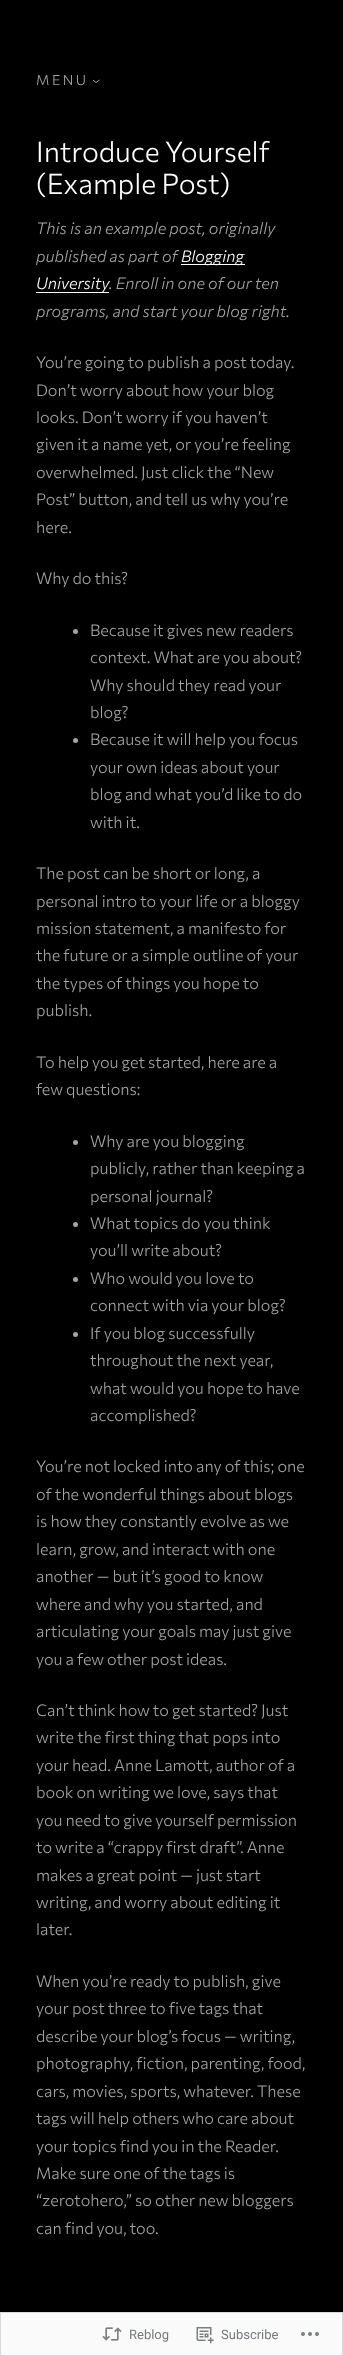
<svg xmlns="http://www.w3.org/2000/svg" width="343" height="2356">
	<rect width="100%" height="100%" fill="#000000" />
	<text x="36" y="85" font-family="Commissioner" font-size="14" font-weight="300" letter-spacing="2.5" fill="#A4A4A4">MENU</text>
	<path d="M93 80L96 82.5L99.5 80" fill="none" stroke="#A4A4A4" />
	<g font-family="Commissioner" font-size="28.25" font-weight="300" fill="#FFFFFF">
		<text x="36" y="162">Introduce Yourself</text>
		<text x="36" y="194">(Example Post)</text>
	</g>
	<g font-family="Commissioner" font-size="16.1" font-weight="300" font-style="italic" fill="#A4A4A4">
		<text x="36" y="234">This is an example post, originally</text>
		<text x="36" y="262">published as part of</text>
	</g>
	<rect x="181" y="264" width="64" height="1" fill="#FFFFFF" />
	<text x="181" y="262" font-family="Commissioner" font-size="16.1" font-weight="300" font-style="italic" fill="#FFFFFF">Blogging</text>
	<rect x="36" y="292" width="73" height="1" fill="#FFFFFF" />
	<text x="36" y="289" font-family="Commissioner" font-size="16.1" font-weight="300" font-style="italic" fill="#FFFFFF">University</text>
	<g font-family="Commissioner" font-size="16.1" font-weight="300" font-style="italic" fill="#A4A4A4">
		<text x="109" y="289">. Enroll in one of our ten</text>
		<text x="36" y="317">programs, and start your blog right.</text>
	</g>
	<g font-family="Commissioner" font-size="16.1" font-weight="300" fill="#A4A4A4">
		<text x="36" y="368">You’re going to publish a post today.</text>
		<text x="36" y="396">Don’t worry about how your blog</text>
		<text x="36" y="423">looks. Don’t worry if you haven’t</text>
		<text x="36" y="450">given it a name yet, or you’re feeling</text>
		<text x="36" y="478">overwhelmed. Just click the “New</text>
		<text x="36" y="505">Post” button, and tell us why you’re</text>
		<text x="36" y="533">here.</text>
		<text x="36" y="584">Why do this?</text>
	</g>
	<circle cx="75.5" cy="631.5" r="2.5" fill="#A4A4A4" />
	<g font-family="Commissioner" font-size="16.1" font-weight="300" fill="#A4A4A4">
		<text x="90" y="636">Because it gives new readers</text>
		<text x="90" y="663">context. What are you about?</text>
		<text x="90" y="691">Why should they read your</text>
		<text x="90" y="718">blog?</text>
	</g>
	<circle cx="75.5" cy="740.5" r="2.5" fill="#A4A4A4" />
	<g font-family="Commissioner" font-size="16.1" font-weight="300" fill="#A4A4A4">
		<text x="90" y="745">Because it will help you focus</text>
		<text x="90" y="773">your own ideas about your</text>
		<text x="90" y="800">blog and what you’d like to do</text>
		<text x="90" y="828">with it.</text>
		<text x="36" y="879">The post can be short or long, a</text>
		<text x="36" y="907">personal intro to your life or a bloggy</text>
		<text x="36" y="934">mission statement, a manifesto for</text>
		<text x="36" y="961">the future or a simple outline of your</text>
		<text x="36" y="989">the types of things you hope to</text>
		<text x="36" y="1016">publish.</text>
		<text x="36" y="1068">To help you get started, here are a</text>
		<text x="36" y="1095">few questions:</text>
	</g>
	<circle cx="75.5" cy="1142.5" r="2.5" fill="#A4A4A4" />
	<g font-family="Commissioner" font-size="16.1" font-weight="300" fill="#A4A4A4">
		<text x="90" y="1147">Why are you blogging</text>
		<text x="90" y="1174">publicly, rather than keeping a</text>
		<text x="90" y="1202">personal journal?</text>
	</g>
	<circle cx="75.5" cy="1224.5" r="2.5" fill="#A4A4A4" />
	<g font-family="Commissioner" font-size="16.1" font-weight="300" fill="#A4A4A4">
		<text x="90" y="1229">What topics do you think</text>
		<text x="90" y="1256">you’ll write about?</text>
	</g>
	<circle cx="75.5" cy="1279.5" r="2.5" fill="#A4A4A4" />
	<g font-family="Commissioner" font-size="16.1" font-weight="300" fill="#A4A4A4">
		<text x="90" y="1284">Who would you love to</text>
		<text x="90" y="1311">connect with via your blog?</text>
	</g>
	<circle cx="75.5" cy="1334.5" r="2.5" fill="#A4A4A4" />
	<g font-family="Commissioner" font-size="16.1" font-weight="300" fill="#A4A4A4">
		<text x="90" y="1339">If you blog successfully</text>
		<text x="90" y="1366">throughout the next year,</text>
		<text x="90" y="1394">what would you hope to have</text>
		<text x="90" y="1421">accomplished?</text>
		<text x="36" y="1472">You’re not locked into any of this; one</text>
		<text x="36" y="1500">of the wonderful things about blogs</text>
		<text x="36" y="1527">is how they constantly evolve as we</text>
		<text x="36" y="1555">learn, grow, and interact with one</text>
		<text x="36" y="1582">another — but it’s good to know</text>
		<text x="36" y="1610">where and why you started, and</text>
		<text x="36" y="1637">articulating your goals may just give</text>
		<text x="36" y="1665">you a few other post ideas.</text>
		<text x="36" y="1716">Can’t think how to get started? Just</text>
		<text x="36" y="1743">write the first thing that pops into</text>
		<text x="36" y="1771">your head. Anne Lamott, author of a</text>
		<text x="36" y="1798">book on writing we love, says that</text>
		<text x="36" y="1826">you need to give yourself permission</text>
		<text x="36" y="1853">to write a “crappy first draft”. Anne</text>
		<text x="36" y="1881">makes a great point — just start</text>
		<text x="36" y="1908">writing, and worry about editing it</text>
		<text x="36" y="1935">later.</text>
		<text x="36" y="1987">When you’re ready to publish, give</text>
		<text x="36" y="2014">your post three to five tags that</text>
		<text x="36" y="2042">describe your blog’s focus — writing,</text>
		<text x="36" y="2069">photography, fiction, parenting, food,</text>
		<text x="36" y="2097">cars, movies, sports, whatever. These</text>
		<text x="36" y="2124">tags will help others who care about</text>
		<text x="36" y="2152">your topics find you in the Reader.</text>
		<text x="36" y="2179">Make sure one of the tags is</text>
		<text x="36" y="2206">“zerotohero,” so other new bloggers</text>
		<text x="36" y="2234">can find you, too.</text>
	</g>
	<rect x="0.5" y="2312.5" width="342" height="43" fill="#FAFAFA" stroke="#D8D8DA" />
	<image x="102" y="2327" width="20" height="14" href="assets/img1.png" />
	<text x="129" y="2339" font-family="Roboto" font-size="13" fill="#767A7F">Reblog</text>
	<image x="196" y="2327" width="18" height="17" href="assets/img2.png" />
	<text x="221" y="2339" font-family="Roboto" font-size="13" fill="#767A7F">Subscribe</text>
	<image x="301" y="2332" width="18" height="4" href="assets/img3.png" />
</svg>
